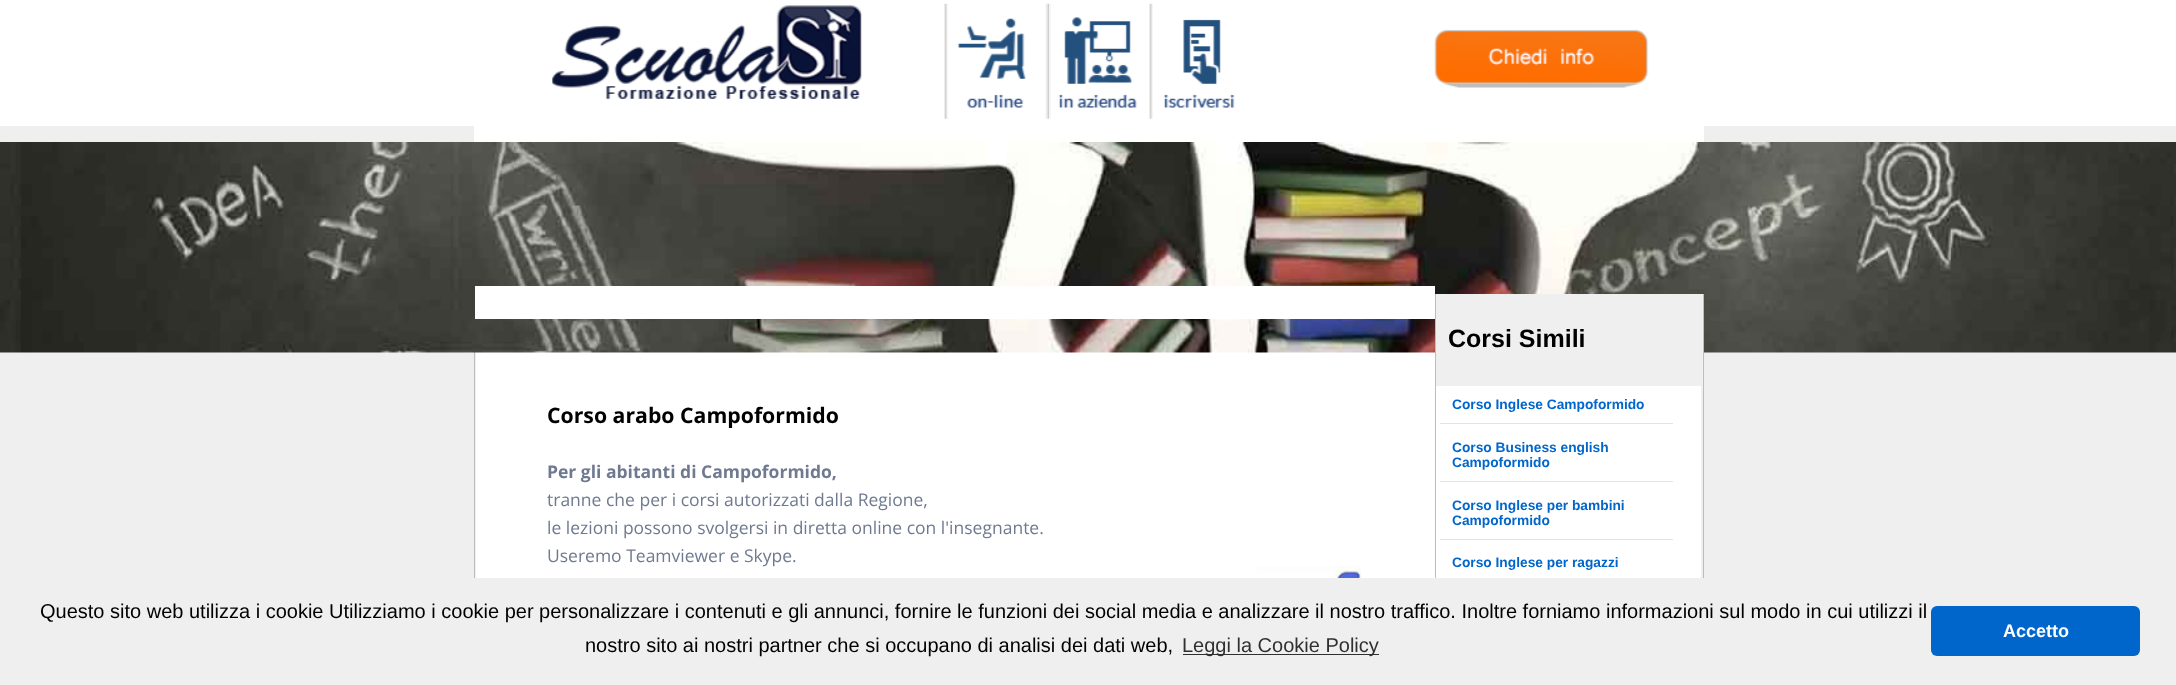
<svg xmlns="http://www.w3.org/2000/svg" width="2176" height="685">
	<rect width="100%" height="100%" fill="#EFEFEF" />
	<rect x="474" y="352" width="1" height="226" fill="#BDBDBD" />
	<rect x="476" y="352" width="1225" height="226" fill="#FFFFFF" />
	<image x="0" y="142" width="2176" height="211" href="assets/img1.png" />
	<rect x="474" y="126" width="1230" height="16" fill="#FFFFFF" />
	<rect x="1703" y="386" width="1" height="192" fill="#BDBDBD" />
	<rect x="0" y="0" width="2176" height="126" fill="#FFFFFF" />
	<image x="552" y="5" width="310" height="94" href="assets/img2.png" />
	<image x="944" y="3" width="4" height="116" href="assets/img3.png" />
	<image x="958" y="18" width="68" height="90" href="assets/img4.png" />
	<image x="1045" y="3" width="6" height="116" href="assets/img5.png" />
	<image x="1058" y="17" width="79" height="91" href="assets/img6.png" />
	<image x="1149" y="3" width="4" height="116" href="assets/img3.png" />
	<image x="1163" y="19" width="72" height="89" href="assets/img7.png" />
	<image x="1434" y="29" width="215" height="59" href="assets/img8.png" />
	<rect x="475" y="286" width="960" height="33" fill="#FFFFFF" />
	<text x="547" y="423" font-family="Open Sans" font-size="21.25" font-weight="700" fill="#000000">Corso arabo Campoformido</text>
	<text x="547" y="478" font-family="Open Sans" font-size="17.5" font-weight="700" fill="#6F7A91">Per gli abitanti di Campoformido,</text>
	<g font-family="Open Sans" font-size="17.5" fill="#6F7A91">
		<text x="547" y="506">tranne che per i corsi autorizzati dalla Regione,</text>
		<text x="547" y="534">le lezioni possono svolgersi in diretta online con l'insegnante.</text>
		<text x="547" y="562">Useremo Teamviewer e Skype.</text>
	</g>
	<image x="1257" y="566" width="105" height="12" href="assets/img9.png" />
	<rect x="1435" y="386" width="1" height="192" fill="#BDBDBD" />
	<rect x="1436" y="294" width="267" height="92" fill="#EFEFEF" />
	<rect x="1703" y="294" width="1" height="92" fill="#BDBDBD" />
	<rect x="1435" y="294" width="1" height="92" fill="#BDBDBD" />
	<text x="1448" y="347" font-family="Liberation Sans" font-size="25" font-weight="700" fill="#000000">Corsi Simili</text>
	<rect x="1440" y="423" width="233" height="1" fill="#DFE4EA" />
	<text x="1452" y="409" font-family="Liberation Sans" font-size="13.75" font-weight="700" fill="#0066CC">Corso Inglese Campoformido</text>
	<rect x="1440" y="481" width="233" height="1" fill="#DFE4EA" />
	<g font-family="Liberation Sans" font-size="13.75" font-weight="700" fill="#0066CC">
		<text x="1452" y="452">Corso Business english</text>
		<text x="1452" y="467">Campoformido</text>
	</g>
	<rect x="1440" y="539" width="233" height="1" fill="#DFE4EA" />
	<g font-family="Liberation Sans" font-size="13.75" font-weight="700" fill="#0066CC">
		<text x="1452" y="510">Corso Inglese per bambini</text>
		<text x="1452" y="525">Campoformido</text>
		<text x="1452" y="567">Corso Inglese per ragazzi</text>
	</g>
	<g font-family="Liberation Sans" font-size="20" fill="#000000">
		<text x="40" y="618">Questo sito web utilizza i cookie Utilizziamo i cookie per personalizzare i contenuti e gli annunci, fornire le funzioni dei social media e analizzare il nostro traffico. Inoltre forniamo informazioni sul modo in cui utilizzi il</text>
		<text x="585" y="652">nostro sito ai nostri partner che si occupano di analisi dei dati web,</text>
	</g>
	<rect x="1183" y="654" width="196" height="1" fill="#303030" />
	<text x="1182" y="652" font-family="Liberation Sans" font-size="20" fill="#303030">Leggi la Cookie Policy</text>
	<rect x="1931" y="606" width="209" height="50" rx="6" fill="#0066CC" />
	<text x="2003" y="637" font-family="Liberation Sans" font-size="18" font-weight="700" fill="#FFFFFF">Accetto</text>
</svg>
